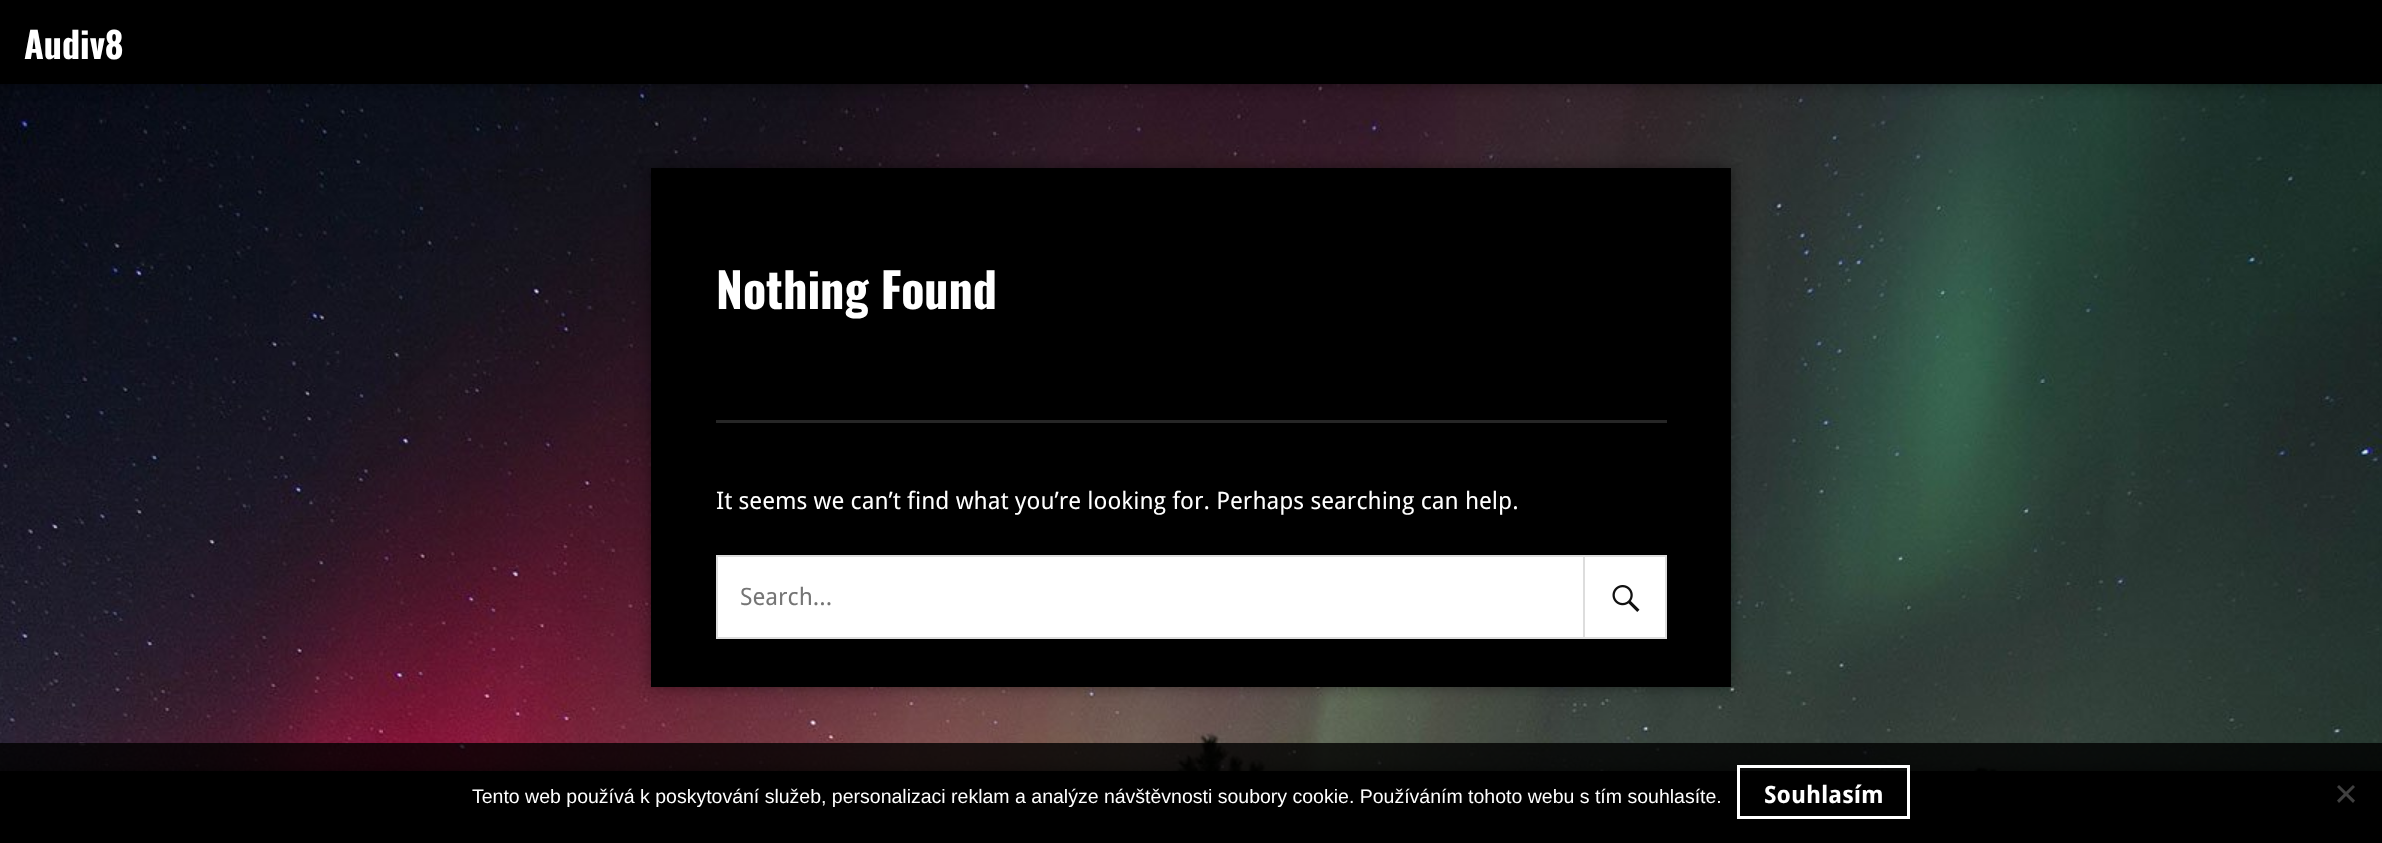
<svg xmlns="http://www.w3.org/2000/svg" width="2382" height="843">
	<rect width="100%" height="100%" fill="#FFFFFF" />
	<image x="0" y="84" width="2382" height="687" href="assets/img1.png" />
	<rect x="0" y="0" width="2382" height="84" fill="#000000" fill-opacity="0.4" filter="blur(7.5px)" />
	<rect x="0" y="0" width="2382" height="84" fill="#000000" />
	<text x="24" y="59" font-family="Oswald" font-size="36" font-weight="700" fill="#FFFFFF">Audiv8</text>
	<rect x="651" y="168" width="1080" height="519" fill="#000000" fill-opacity="0.4" filter="blur(7.5px)" />
	<rect x="651" y="168" width="1080" height="519" fill="#000000" />
	<rect x="716" y="420" width="951" height="3" fill="#262626" />
	<text x="716" y="309" font-family="Oswald" font-size="48" font-weight="700" fill="#FFFFFF">Nothing Found</text>
	<text x="716" y="509" font-family="Droid Sans" font-size="24" fill="#FFFFFF">It seems we can’t find what you’re looking for. Perhaps searching can help.</text>
	<rect x="717" y="556" width="949" height="82" fill="#FFFFFF" stroke="#DDDDDD" stroke-width="2" />
	<text x="740" y="605" font-family="Droid Sans" font-size="24" fill="#757575">Search...</text>
	<rect x="1583" y="555" width="2" height="84" fill="#DDDDDD" />
	<image x="1612" y="585" width="28" height="27" href="assets/img2.png" />
	<rect x="0" y="771" width="2382" height="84" fill="#000000" fill-opacity="0.4" filter="blur(7.5px)" />
	<rect x="0" y="771" width="2382" height="72" fill="#000000" />
	<rect x="0" y="743" width="2382" height="28" fill="#000000" fill-opacity="0.8" />
	<text x="472" y="803" font-family="Liberation Sans" font-size="19.5" fill="#FFFFFF">Tento web používá k poskytování služeb, personalizaci reklam a analýze návštěvnosti soubory cookie. Používáním tohoto webu s tím souhlasíte.</text>
	<rect x="1738.5" y="766.5" width="170" height="51" fill="none" stroke="#FFFFFF" stroke-width="3" />
	<text x="1764" y="803" font-family="Droid Sans" font-size="24" font-weight="700" fill="#FFFFFF">Souhlasím</text>
	<path d="M2353 785L2355 787L2339 803L2337 800.5Z" fill="#404040" />
	<path d="M2337 787L2339 785L2355 800.5L2353 803Z" fill="#404040" />
</svg>
